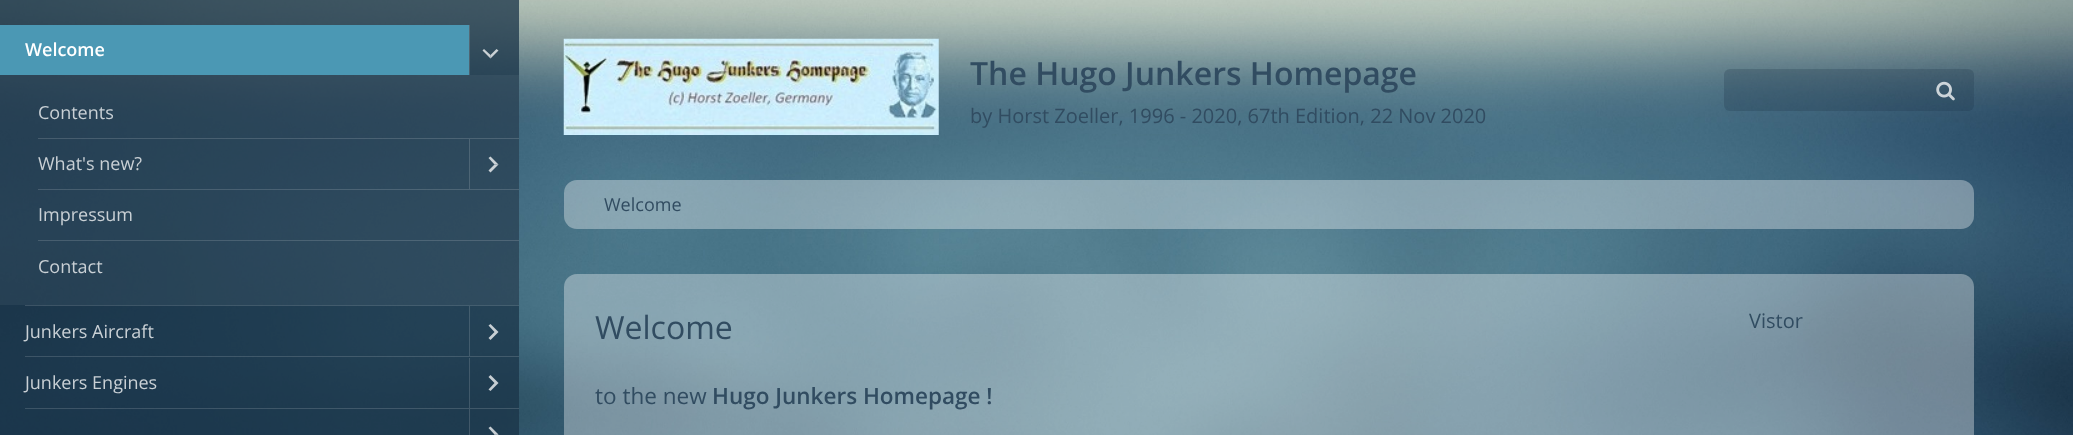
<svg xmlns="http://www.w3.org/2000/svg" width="2073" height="435">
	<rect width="100%" height="100%" fill="#FFFFFF" />
	<image x="0" y="0" width="2073" height="435" href="assets/img1.png" />
	<rect x="0" y="0" width="519" height="435" fill="#1A3347" fill-opacity="0.5" />
	<rect x="0" y="0" width="519" height="435" fill="#1A3347" fill-opacity="0.5" />
	<rect x="0" y="25" width="469" height="50" fill="#4B98B4" />
	<text x="25" y="56" font-family="Open Sans" font-size="18" font-weight="600" fill="#FFFFFF">Welcome</text>
	<rect x="469" y="25" width="1" height="50" fill="#FFFFFF" fill-opacity="0.15" />
	<path d="M498.5 50.5L490.5 58.5V55L496.5 49Z" fill="#FFFFFF" fill-opacity="0.75" />
	<path d="M490.5 58.5L482.5 50.5L484 49L490.5 55Z" fill="#FFFFFF" fill-opacity="0.75" />
	<rect x="0" y="75" width="519" height="230" fill="#FFFFFF" fill-opacity="0.05" />
	<text x="38" y="119" font-family="Open Sans" font-size="18" fill="#C9D0D5">Contents</text>
	<rect x="38" y="138" width="481" height="1" fill="#FFFFFF" fill-opacity="0.15" />
	<text x="38" y="170" font-family="Open Sans" font-size="18" fill="#C9D0D5">What's new?</text>
	<rect x="469" y="139" width="1" height="50" fill="#4D6575" />
	<path d="M490.5 156.5L498.5 164.5H494.5L488.5 158Z" fill="#CBD2D7" />
	<path d="M498.5 164.5L490.5 172.5L488.5 170.5L494.5 164.5Z" fill="#CBD2D7" />
	<rect x="38" y="189" width="481" height="1" fill="#FFFFFF" fill-opacity="0.15" />
	<text x="38" y="221" font-family="Open Sans" font-size="18" fill="#C9D0D5">Impressum</text>
	<rect x="38" y="240" width="481" height="1" fill="#FFFFFF" fill-opacity="0.15" />
	<text x="38" y="273" font-family="Open Sans" font-size="18" fill="#C9D0D5">Contact</text>
	<rect x="25" y="305" width="494" height="1" fill="#FFFFFF" fill-opacity="0.15" />
	<text x="25" y="338" font-family="Open Sans" font-size="18" fill="#C9D0D5">Junkers Aircraft</text>
	<rect x="469" y="306" width="1" height="50" fill="#FFFFFF" fill-opacity="0.15" />
	<path d="M490.5 324L498.5 332H494.5L488.5 325.5ZM498.5 332L490.5 340L488.5 338L494.5 332Z" fill="#C8CFD4" />
	<rect x="25" y="356" width="494" height="1" fill="#FFFFFF" fill-opacity="0.15" />
	<text x="25" y="389" font-family="Open Sans" font-size="18" fill="#C9D0D5">Junkers Engines</text>
	<rect x="469" y="358" width="1" height="50" fill="#FFFFFF" fill-opacity="0.15" />
	<path d="M490.5 375L498.5 383H494.5L488.5 377ZM498.5 383L490.5 391L488.5 389.5L494.5 383Z" fill="#C7CED3" />
	<rect x="25" y="408" width="494" height="1" fill="#FFFFFF" fill-opacity="0.15" />
	<rect x="469" y="409" width="1" height="26" fill="#415869" />
	<path d="M490.5 426.5L498.5 434.5H494.5L488.5 428Z" fill="#C7CED3" />
	<path d="M498.5 434.5L490.5 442.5L488.5 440.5L494.5 434.5Z" fill="#FFFFFF" fill-opacity="0.75" />
	<image x="563" y="38" width="376" height="97" href="assets/img2.png" />
	<text x="970" y="85" font-family="Open Sans" font-size="32" font-weight="600" fill="#314C61">The Hugo Junkers Homepage</text>
	<text x="970" y="123" font-family="Open Sans" font-size="20" fill="#314C61">by Horst Zoeller, 1996 - 2020, 67th Edition, 22 Nov 2020</text>
	<rect x="1724" y="69" width="250" height="42" rx="6" fill="#1A3347" fill-opacity="0.25" />
	<image x="1936" y="81" width="19" height="20" href="assets/img3.png" />
	<rect x="564" y="180" width="1410" height="49" rx="13" fill="#FFFFFF" fill-opacity="0.35" />
	<text x="604" y="211" font-family="Open Sans" font-size="18" fill="#314C61">Welcome</text>
	<rect x="564" y="274" width="1410" height="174" rx="13" fill="#FFFFFF" fill-opacity="0.35" />
	<text x="595" y="339" font-family="Open Sans" font-size="32" fill="#314C61">Welcome</text>
	<text x="595" y="404" font-family="Open Sans" font-size="22.5" fill="#314C61">to the new</text>
	<text x="712" y="404" font-family="Open Sans" font-size="22.5" font-weight="600" fill="#314C61">Hugo Junkers Homepage !</text>
	<text x="1749" y="328" font-family="Open Sans" font-size="20" fill="#314C61">Vistor</text>
</svg>
